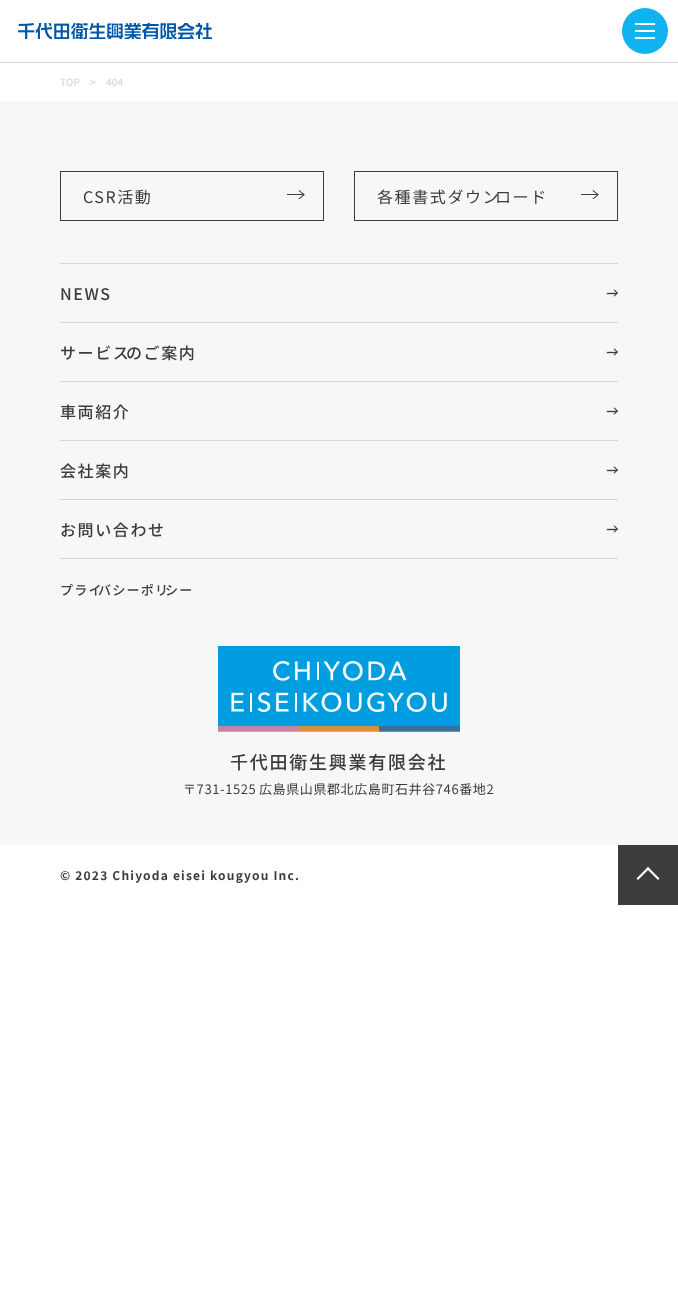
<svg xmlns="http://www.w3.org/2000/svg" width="678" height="1299">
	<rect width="100%" height="100%" fill="#FFFFFF" />
	<image x="18" y="23" width="194" height="16" href="assets/img1.png" />
	<circle cx="645" cy="31" r="23" fill="#11B2F0" />
	<rect x="635" y="23" width="20" height="2" fill="#FFFFFF" />
	<rect x="635" y="30" width="20" height="2" fill="#FFFFFF" />
	<rect x="635" y="37" width="20" height="2" fill="#FFFFFF" />
	<rect x="0" y="62" width="678" height="1" fill="#D5D6D6" />
	<g font-family="Noto Sans JP" font-size="10" font-weight="500" fill="#D5D6D6">
		<text x="60" y="86">TOP</text>
		<text x="90" y="86">&gt;</text>
		<text x="106" y="86">404</text>
	</g>
	<rect x="0" y="101" width="678" height="744" fill="#F7F7F7" />
	<rect x="60.5" y="171.5" width="263" height="49" fill="none" stroke="#3C3C3C" />
	<text x="83" y="203" font-family="Noto Sans JP" font-size="16" letter-spacing="1.6" fill="#3C3C3C">CSR活動</text>
	<image x="287" y="190" width="18" height="9" href="assets/img2.png" />
	<rect x="354.5" y="171.5" width="263" height="49" fill="none" stroke="#3C3C3C" />
	<text x="377" y="203" font-family="Noto Sans JP" font-size="16" letter-spacing="1.6" fill="#3C3C3C">各種書式ダウン</text>
	<text x="495" y="203" font-family="Noto Sans JP" font-size="16" letter-spacing="1.6" fill="#3C3C3C">ロード</text>
	<image x="581" y="190" width="18" height="9" href="assets/img2.png" />
	<rect x="60" y="263" width="558" height="1" fill="#D5D6D6" />
	<text x="60" y="300" font-family="Noto Sans JP" font-size="16" font-weight="500" letter-spacing="1.6" fill="#3C3C3C">NEWS</text>
	<rect x="606.5" y="292.5" width="11" height="2" rx="1" fill="none" stroke="#D5D6D6" />
	<rect x="607" y="293" width="10" height="1" fill="#3C3C3C" />
	<path d="M614.5 289.5L618 293L617 293.5L613.5 290Z" fill="#3C3C3C" />
	<path d="M617 292.5L618 293L614.5 296.5L613.5 296Z" fill="#3C3C3C" />
	<rect x="60" y="322" width="558" height="1" fill="#D5D6D6" />
	<text x="60" y="359" font-family="Noto Sans JP" font-size="16" font-weight="500" letter-spacing="1.6" fill="#3C3C3C">サービス</text>
	<text x="126" y="359" font-family="Noto Sans JP" font-size="16" font-weight="500" letter-spacing="1.6" fill="#3C3C3C">のご案内</text>
	<rect x="606.5" y="351.5" width="11" height="2" rx="1" fill="none" stroke="#D5D6D6" />
	<rect x="607" y="352" width="10" height="1" fill="#3C3C3C" />
	<path d="M614.5 348.5L618 352L617 352.5L613.5 349Z" fill="#3C3C3C" />
	<path d="M617 351.5L618 352L614.5 355.5L613.5 355Z" fill="#3C3C3C" />
	<rect x="60" y="381" width="558" height="1" fill="#D5D6D6" />
	<text x="60" y="418" font-family="Noto Sans JP" font-size="16" font-weight="500" letter-spacing="1.6" fill="#3C3C3C">車両紹介</text>
	<rect x="606.5" y="410.5" width="11" height="2" rx="1" fill="none" stroke="#D5D6D6" />
	<rect x="607" y="411" width="10" height="1" fill="#3C3C3C" />
	<path d="M614.5 407.5L618 411L617 411.5L613.5 408Z" fill="#3C3C3C" />
	<path d="M617 410.5L618 411L614.5 414.5L613.5 414Z" fill="#3C3C3C" />
	<rect x="60" y="440" width="558" height="1" fill="#D5D6D6" />
	<text x="60" y="477" font-family="Noto Sans JP" font-size="16" font-weight="500" letter-spacing="1.6" fill="#3C3C3C">会社案内</text>
	<rect x="606.5" y="469.5" width="11" height="2" rx="1" fill="none" stroke="#D5D6D6" />
	<rect x="607" y="470" width="10" height="1" fill="#3C3C3C" />
	<path d="M614.5 466.5L618 470L617 470.5L613.5 467Z" fill="#3C3C3C" />
	<path d="M617 469.5L618 470L614.5 473.5L613.5 473Z" fill="#3C3C3C" />
	<rect x="60" y="499" width="558" height="1" fill="#D5D6D6" />
	<text x="60" y="536" font-family="Noto Sans JP" font-size="16" font-weight="500" letter-spacing="1.6" fill="#3C3C3C">お問い合わせ</text>
	<rect x="606.5" y="528.5" width="11" height="2" rx="1" fill="none" stroke="#D5D6D6" />
	<rect x="607" y="529" width="10" height="1" fill="#3C3C3C" />
	<path d="M614.5 525.5L618 529L617 529.5L613.5 526Z" fill="#3C3C3C" />
	<path d="M617 528.5L618 529L614.5 532.5L613.5 532Z" fill="#3C3C3C" />
	<rect x="60" y="558" width="558" height="1" fill="#D5D6D6" />
	<text x="60" y="595" font-family="Noto Sans JP" font-size="13" font-weight="500" letter-spacing="1.25" fill="#3C3C3C">プライ</text>
	<text x="98" y="595" font-family="Noto Sans JP" font-size="13" font-weight="500" letter-spacing="1.25" fill="#3C3C3C">バシーポリ</text>
	<text x="165" y="595" font-family="Noto Sans JP" font-size="13" font-weight="500" letter-spacing="1.25" fill="#3C3C3C">シー</text>
	<image x="218" y="646" width="242" height="86" href="assets/img3.png" />
	<text x="230" y="769" font-family="Noto Sans JP" font-size="18" font-weight="500" letter-spacing="1.75" fill="#3C3C3C">千代田衛生興業有限会社</text>
	<text x="183" y="794" font-family="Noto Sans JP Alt" font-size="13" letter-spacing="0.6" fill="#3C3C3C">〒731-1525</text>
	<text x="259" y="794" font-family="Noto Sans JP" font-size="13" letter-spacing="0.6" fill="#3C3C3C">広島県山県郡北広島町石井谷746番地2</text>
	<text x="60" y="880" font-family="Noto Sans JP" font-size="12" font-weight="700" letter-spacing="1.2" fill="#3C3C3C">© 2023 Chiyoda eisei kougyou Inc.</text>
	<rect x="618" y="845" width="60" height="60" fill="#3C3C3C" />
	<path d="M648 867L659.5 878.5L658 880L646.5 868.5Z" fill="#FFFFFF" />
	<path d="M648 867L649.5 868.5L638 880L636.5 878.5Z" fill="#FFFFFF" />
</svg>
